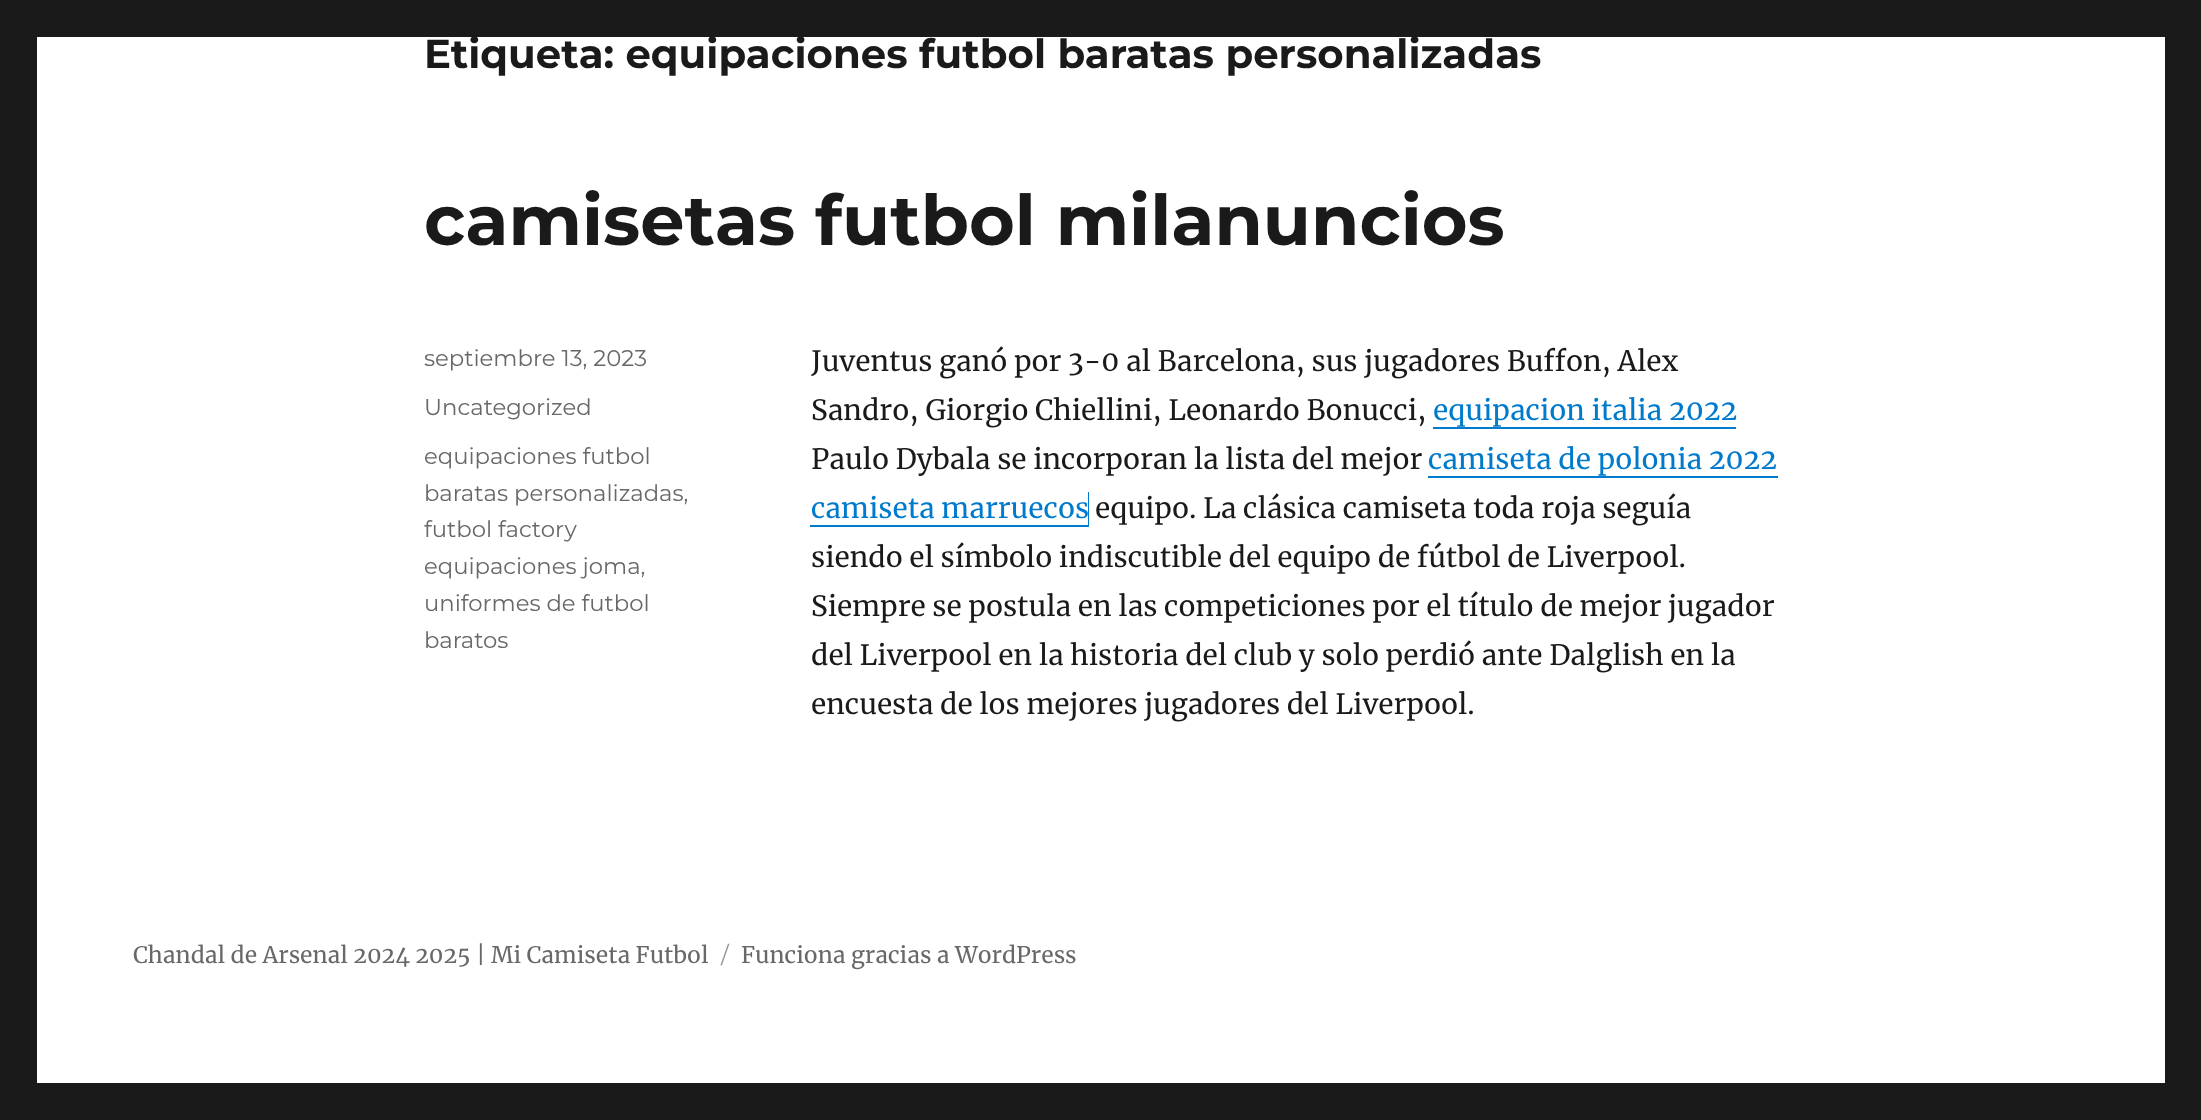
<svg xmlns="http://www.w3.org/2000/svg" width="2201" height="1120">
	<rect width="100%" height="100%" fill="#1A1A1A" />
	<rect x="37" y="37" width="2128" height="1046" fill="#FFFFFF" />
	<text x="424" y="68" font-family="Montserrat" font-size="40.25" font-weight="100" fill="#1A1A1A">Etiqueta: equipaciones futbol baratas personalizadas</text>
	<text x="424" y="245" font-family="Montserrat" font-size="70" font-weight="100" fill="#1A1A1A">camisetas futbol milanuncios</text>
	<g font-family="'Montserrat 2'" font-size="22.75" font-weight="100" fill="#686868">
		<text x="424" y="366">septiembre 13, 2023</text>
		<text x="424" y="415">Uncategorized</text>
		<text x="424" y="464">equipaciones futbol</text>
		<text x="424" y="501">baratas personalizadas,</text>
		<text x="424" y="537">futbol factory</text>
		<text x="424" y="574">equipaciones joma,</text>
		<text x="424" y="611">uniformes de futbol</text>
		<text x="424" y="648">baratos</text>
	</g>
	<g font-family="Merriweather" font-size="28" fill="#1A1A1A">
		<text x="811" y="371">Juventus ganó por 3-0 al Barcelona, sus jugadores Buffon, Alex</text>
		<text x="811" y="420">Sandro, Giorgio Chiellini, Leonardo Bonucci,</text>
	</g>
	<text x="1433" y="420" font-family="Merriweather" font-size="28" fill="#007ACC">equipacion italia 2022</text>
	<path d="M1433 394V429H1736V427H1433Z" fill="#007ACC" />
	<text x="811" y="469" font-family="Merriweather" font-size="28" fill="#1A1A1A">Paulo Dybala se incorporan la lista del mejor</text>
	<text x="1428" y="469" font-family="Merriweather" font-size="28" fill="#007ACC">camiseta de polonia 2022</text>
	<rect x="1428" y="476" width="350" height="2" fill="#007ACC" />
	<path d="M810 492V527H1089V492H1088V525H810Z" fill="#007ACC" />
	<text x="811" y="518" font-family="Merriweather" font-size="28" fill="#007ACC">camiseta marruecos</text>
	<g font-family="Merriweather" font-size="28" fill="#1A1A1A">
		<text x="1095" y="518">equipo. La clásica camiseta toda roja seguía</text>
		<text x="811" y="567">siendo el símbolo indiscutible del equipo de fútbol de Liverpool.</text>
		<text x="811" y="616">Siempre se postula en las competiciones por el título de mejor jugador</text>
		<text x="811" y="665">del Liverpool en la historia del club y solo perdió ante Dalglish en la</text>
		<text x="811" y="714">encuesta de los mejores jugadores del Liverpool.</text>
	</g>
	<text x="133" y="963" font-family="Merriweather" font-size="22.75" fill="#686868">Chandal de Arsenal 2024 2025 | Mi Camiseta Futbol</text>
	<text x="721" y="963" font-family="'Montserrat 2'" font-size="22.75" font-weight="100" fill="#959595">/</text>
	<text x="741" y="963" font-family="Merriweather" font-size="22.75" fill="#686868">Funciona gracias a WordPress</text>
</svg>
